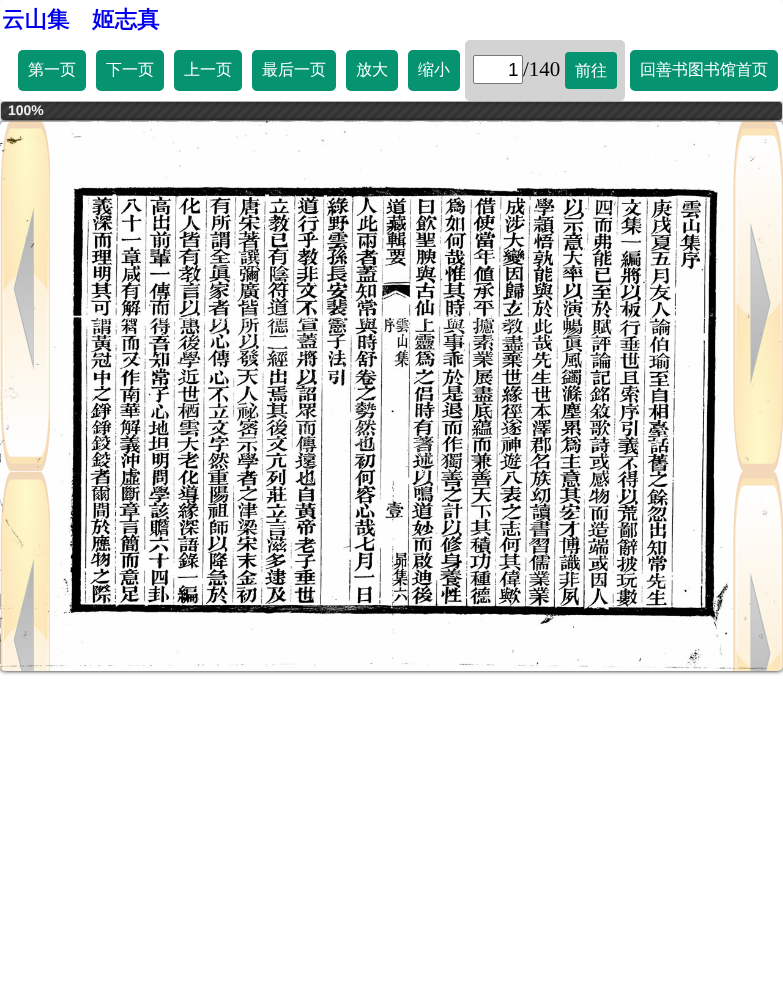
<svg xmlns="http://www.w3.org/2000/svg" width="783" height="984">
	<rect width="100%" height="100%" fill="#FFFFFF" />
	<rect x="0.5" y="101.5" width="782" height="19" rx="3.5" fill="none" stroke="#CCCCCC" />
	<image x="1" y="102" width="781" height="18" href="assets/img1.png" />
	<rect x="0" y="2" width="783" height="101" rx="4" fill="#000000" fill-opacity="0.2" filter="blur(2.5px)" />
	<rect x="0" y="0" width="783" height="101" rx="4" fill="#FFFFFF" />
	<text x="2" y="27" font-family="WenQuanYi Zen Hei" font-size="22.5" font-weight="700" fill="#0000EE">云山集　姬志真</text>
	<rect x="18" y="50" width="68" height="41" rx="5" fill="#069370" />
	<text x="28" y="75" font-family="WenQuanYi Zen Hei" font-size="16" font-weight="500" fill="#FFFFFF">第一页</text>
	<rect x="96" y="50" width="68" height="41" rx="5" fill="#069370" />
	<text x="106" y="75" font-family="WenQuanYi Zen Hei" font-size="16" font-weight="500" fill="#FFFFFF">下一页</text>
	<rect x="174" y="50" width="68" height="41" rx="5" fill="#069370" />
	<text x="184" y="75" font-family="WenQuanYi Zen Hei" font-size="16" font-weight="500" fill="#FFFFFF">上一页</text>
	<rect x="252" y="50" width="84" height="41" rx="5" fill="#069370" />
	<text x="262" y="75" font-family="WenQuanYi Zen Hei" font-size="16" font-weight="500" fill="#FFFFFF">最后一页</text>
	<rect x="346" y="50" width="52" height="41" rx="5" fill="#069370" />
	<text x="356" y="75" font-family="WenQuanYi Zen Hei" font-size="16" font-weight="500" fill="#FFFFFF">放大</text>
	<rect x="408" y="50" width="52" height="41" rx="5" fill="#069370" />
	<text x="418" y="75" font-family="WenQuanYi Zen Hei" font-size="16" font-weight="500" fill="#FFFFFF">缩小</text>
	<rect x="465" y="40" width="160" height="61" rx="5" fill="#D3D3D3" />
	<rect x="473.5" y="55.5" width="49" height="28" rx="1.5" fill="#FFFFFF" stroke="#767676" />
	<text x="508" y="76" font-family="Liberation Sans" font-size="19" fill="#000000">1</text>
	<text x="523" y="76" font-family="Liberation Serif" font-size="21" fill="#000000">/140</text>
	<rect x="565" y="52" width="52" height="37" rx="4" fill="#069370" />
	<text x="575" y="76" font-family="WenQuanYi Zen Hei" font-size="16" font-weight="500" fill="#FFFFFF">前往</text>
	<rect x="630" y="50" width="148" height="41" rx="5" fill="#069370" />
	<text x="640" y="75" font-family="WenQuanYi Zen Hei" font-size="16" font-weight="500" fill="#FFFFFF">回善书图书馆首页</text>
	<text x="8" y="115" font-family="Liberation Sans" font-size="14" font-weight="700" fill="#EEEEEE">100%</text>
	<rect x="0" y="121" width="783" height="550" rx="5" fill="#000000" filter="blur(2px)" />
	<image x="0" y="121" width="783" height="550" href="assets/img2.png" />
	<image x="0" y="121" width="50" height="550" href="assets/img3.png" />
	<image x="733" y="121" width="50" height="550" href="assets/img4.png" />
</svg>
